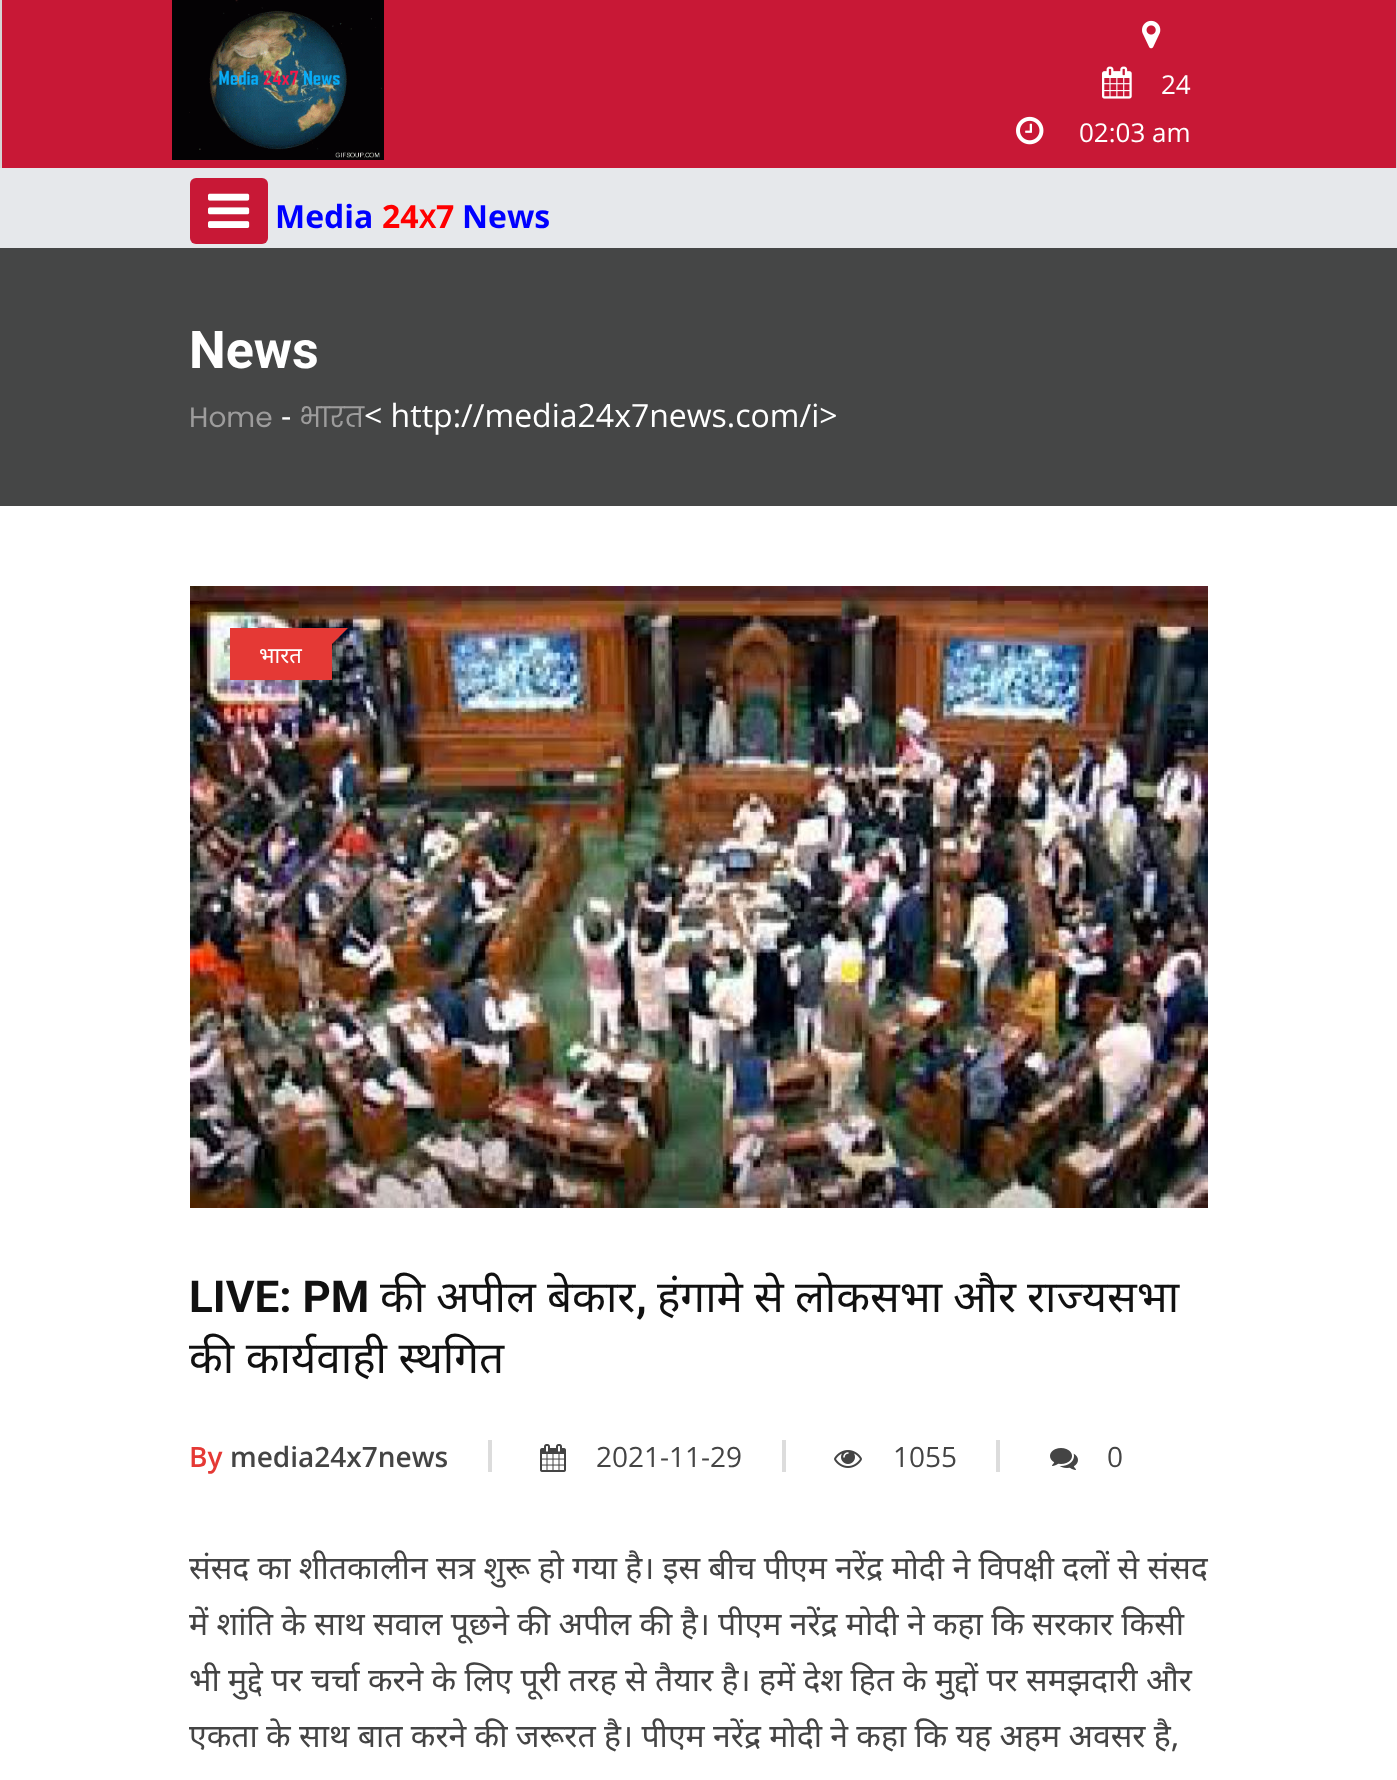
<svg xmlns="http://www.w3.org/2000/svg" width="1397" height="1780">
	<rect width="100%" height="100%" fill="#E6E8EB" />
	<rect x="2" y="0" width="1394" height="168" fill="#C81836" />
	<rect x="1396" y="0" width="1" height="168" fill="#D5D5D5" />
	<rect x="0" y="0" width="2" height="168" fill="#D5D5D5" />
	<image x="172" y="0" width="212" height="160" href="assets/img1.png" />
	<image x="1142" y="20" width="19" height="29" href="assets/img2.png" />
	<image x="1102" y="66" width="30" height="33" href="assets/img3.png" />
	<text x="1161" y="94" font-family="Open Sans" font-size="26" fill="#FFFFFF">24</text>
	<image x="1016" y="116" width="28" height="29" href="assets/img4.png" />
	<text x="1079" y="142" font-family="Open Sans" font-size="26" fill="#FFFFFF">02:03 am</text>
	<rect x="190" y="178" width="78" height="66" rx="6" fill="#C81836" />
	<image x="208" y="193" width="42" height="35" href="assets/img5.png" />
	<text x="275" y="228" font-family="Open Sans" font-size="32" font-weight="700" fill="#0000FF">Media</text>
	<text x="382" y="228" font-family="Open Sans" font-size="32" font-weight="700" fill="#FF0000">24</text>
	<text x="419" y="228" font-family="Open Sans" font-size="26" font-weight="700" fill="#FF0000">X</text>
	<text x="436" y="228" font-family="Open Sans" font-size="32" font-weight="700" fill="#FF0000">7</text>
	<text x="462" y="228" font-family="Open Sans" font-size="32" font-weight="700" fill="#0000FF">News</text>
	<rect x="0" y="248" width="1397" height="258" fill="#454646" />
	<text x="189" y="368" font-family="Roboto" font-size="52" font-weight="700" fill="#FFFFFF">News</text>
	<text x="189" y="427" font-family="Poppins" font-size="28" fill="#9D9C9C">Home</text>
	<text x="281" y="427" font-family="Open Sans" font-size="32" fill="#FFFFFF">-</text>
	<text x="299" y="427" font-family="Poppins" font-size="28" fill="#9D9C9C">भारत</text>
	<text x="364" y="427" font-family="Open Sans" font-size="32" fill="#FFFFFF">&lt; http://media24x7news.com/i&gt;</text>
	<rect x="0" y="506" width="1397" height="1274" fill="#FFFFFF" />
	<image x="190" y="586" width="1018" height="622" href="assets/img6.png" />
	<rect x="230" y="628" width="102" height="52" fill="#E53935" />
	<path d="M332 628H348L332 644Z" fill="#E53935" />
	<text x="259" y="663" font-family="Noto Sans" font-size="22" fill="#FFFFFF">भारत</text>
	<text x="189" y="1312" font-family="Roboto" font-size="44" font-weight="700" fill="#111111">LIVE: PM</text>
	<g font-family="Noto Sans" font-size="44" fill="#111111">
		<text x="380" y="1312">की</text>
		<text x="436" y="1312">अपील</text>
		<text x="547" y="1312">बेकार</text>
	</g>
	<text x="636" y="1312" font-family="Roboto" font-size="44" font-weight="700" fill="#111111">,</text>
	<g font-family="Noto Sans" font-size="44" fill="#111111">
		<text x="657" y="1312">हंगामे</text>
		<text x="754" y="1312">से</text>
		<text x="795" y="1312">लोकसभा</text>
		<text x="953" y="1312">और</text>
		<text x="1027" y="1312">राज्यसभा</text>
		<text x="189" y="1373">की कार्यवाही स्थगित</text>
	</g>
	<rect x="488" y="1440" width="4" height="32" fill="#DCDCDC" />
	<text x="189" y="1467" font-family="Open Sans" font-size="28" font-weight="600" fill="#E53935">By</text>
	<text x="230" y="1467" font-family="Open Sans" font-size="28" font-weight="600" fill="#444444">media24x7news</text>
	<rect x="782" y="1440" width="4" height="32" fill="#DCDCDC" />
	<image x="540" y="1444" width="26" height="28" href="assets/img7.png" />
	<text x="596" y="1467" font-family="Open Sans" font-size="28" fill="#444444">2021-11-29</text>
	<rect x="996" y="1440" width="4" height="32" fill="#DCDCDC" />
	<image x="834" y="1450" width="28" height="18" href="assets/img8.png" />
	<text x="893" y="1467" font-family="Open Sans" font-size="28" fill="#444444">1055</text>
	<image x="1050" y="1448" width="28" height="22" href="assets/img9.png" />
	<text x="1107" y="1467" font-family="Open Sans" font-size="28" fill="#444444">0</text>
	<g font-family="Noto Sans" font-size="32" fill="#444444">
		<text x="189" y="1579">संसद का शीतकालीन सत्र शुरू हो गया है। इस बीच पीएम नरेंद्र मोदी ने विपक्षी दलों से संसद</text>
		<text x="189" y="1635">में शांति के साथ सवाल पूछने की अपील की है। पीएम नरेंद्र मोदी ने कहा कि सरकार किसी</text>
		<text x="189" y="1691">भी मुद्दे पर चर्चा करने के लिए पूरी तरह से तैयार है। हमें देश हित के मुद्दों पर समझदारी और</text>
		<text x="189" y="1747">एकता के साथ बात करने की जरूरत है। पीएम नरेंद्र मोदी ने कहा कि यह अहम अवसर है,</text>
	</g>
</svg>
